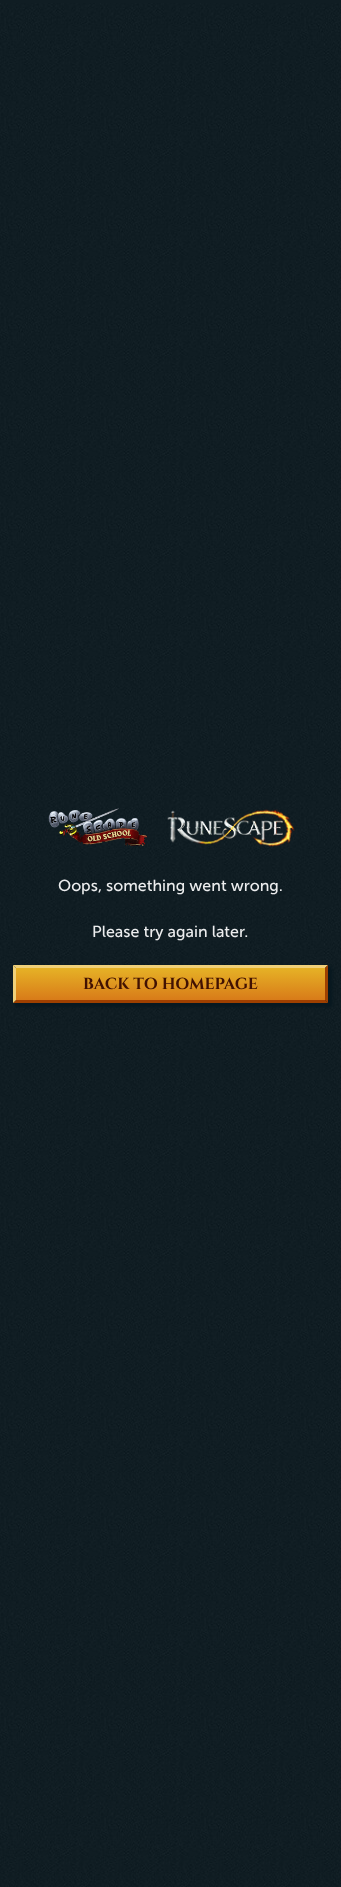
<svg xmlns="http://www.w3.org/2000/svg" width="341" height="1887">
	<defs>
		<linearGradient id="g1" gradientUnits="userSpaceOnUse" x1="171" y1="968" x2="171" y2="1000"><stop offset="0" stop-color="#E6B226" /><stop offset="1" stop-color="#D87B19" /></linearGradient>
	</defs>
	<rect width="100%" height="100%" fill="#101D23" />
	<image x="0" y="3" width="341" height="1884" href="assets/img1.png" />
	<image x="48" y="808" width="99" height="39" href="assets/img2.png" />
	<image x="167" y="809" width="128" height="38" href="assets/img3.png" />
	<g font-family="Museo Sans" font-size="16" fill="#ECEDEE">
		<text x="58" y="891">Oops, something went wrong.</text>
		<text x="92" y="937">Please try again later.</text>
	</g>
	<rect x="15" y="967" width="317" height="40" fill="#071820" filter="blur(1.5px)" />
	<rect x="16" y="968" width="309" height="32" fill="url(#g1)" />
	<path d="M13 965H328L325 968H16Z" fill="#F0D079" />
	<path d="M328 965V1003L325 1000V968Z" fill="#9F4000" />
	<path d="M328 1003H13L16 1000H325Z" fill="#9F4000" />
	<path d="M13 1003V965L16 968V1000Z" fill="#F0D079" />
	<text x="83" y="989" font-family="Cinzel" font-size="16" font-weight="700" fill="#411102">BACK TO HOMEPAGE</text>
</svg>
